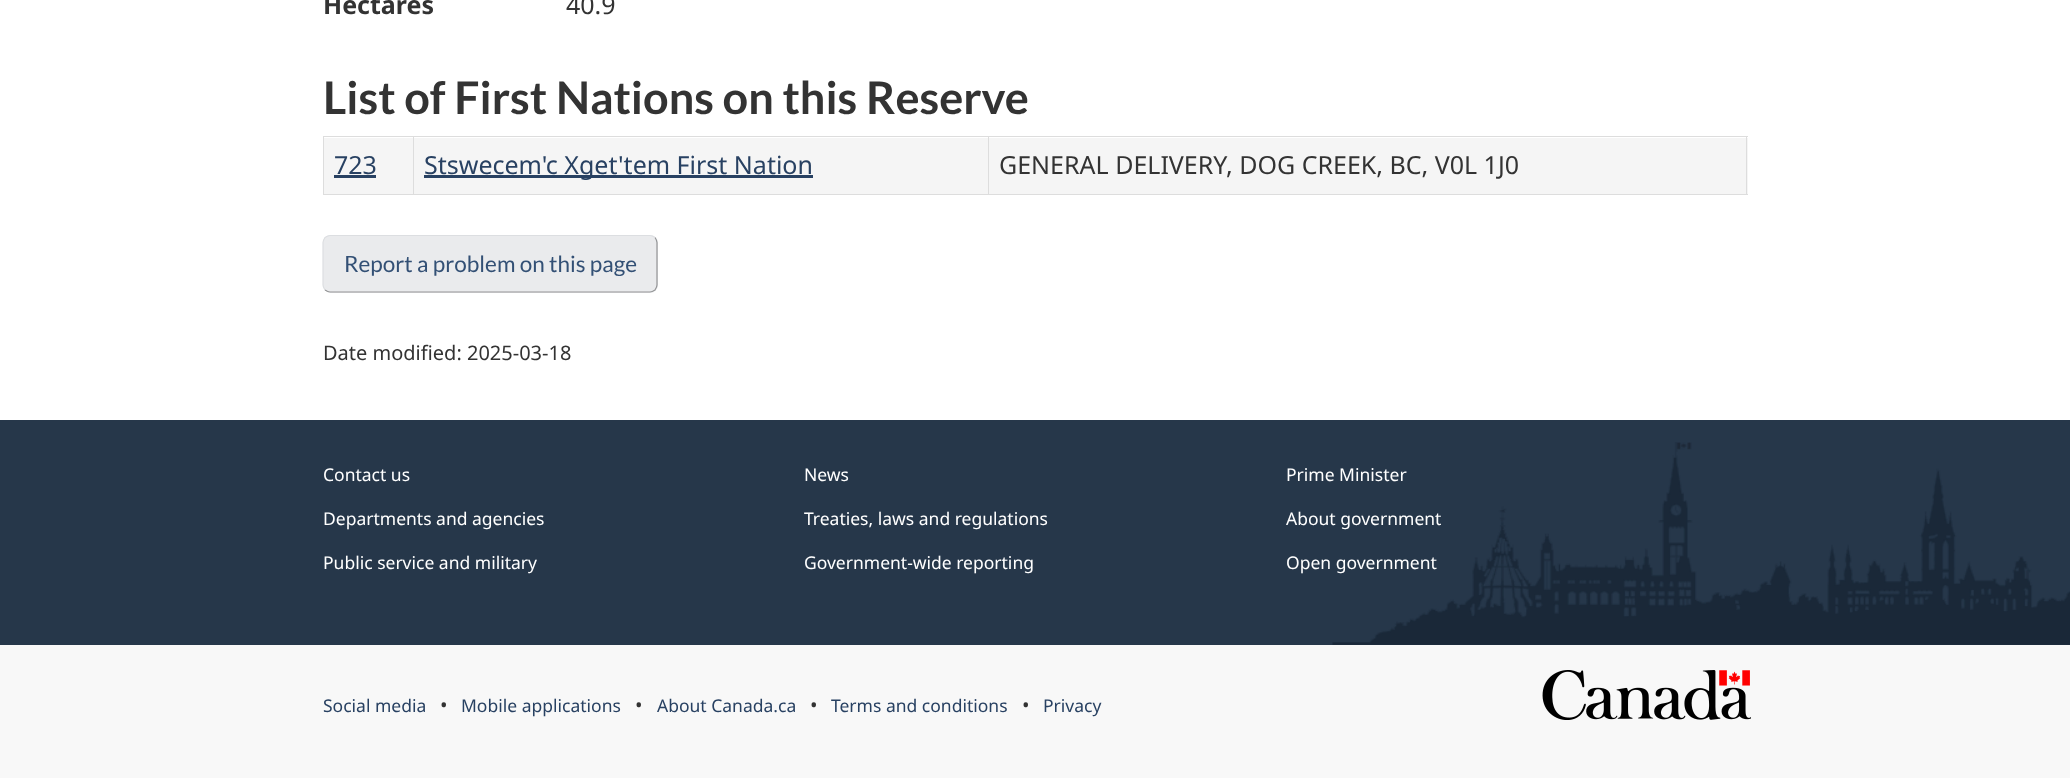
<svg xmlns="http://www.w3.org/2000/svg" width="2070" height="778">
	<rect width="100%" height="100%" fill="#FFFFFF" />
	<text x="323" y="14" font-family="Noto Sans" font-size="25" font-weight="700" fill="#333333">Hectares</text>
	<text x="566" y="14" font-family="Noto Sans" font-size="25" fill="#333333">40.9</text>
	<text x="323" y="114" font-family="Lato" font-size="45" font-weight="700" fill="#333333">List of First Nations on this Reserve</text>
	<rect x="324" y="138" width="1424" height="56" fill="#F5F5F5" />
	<rect x="988" y="136" width="760" height="1" fill="#DDDDDD" />
	<rect x="1746" y="136" width="1" height="59" fill="#DDDDDD" />
	<rect x="988" y="194" width="760" height="1" fill="#DDDDDD" />
	<rect x="988" y="136" width="1" height="59" fill="#DDDDDD" />
	<rect x="413" y="136" width="576" height="1" fill="#DDDDDD" />
	<rect x="413" y="194" width="576" height="1" fill="#DDDDDD" />
	<rect x="413" y="136" width="1" height="59" fill="#DDDDDD" />
	<rect x="323" y="136" width="91" height="1" fill="#DDDDDD" />
	<rect x="323" y="194" width="91" height="1" fill="#DDDDDD" />
	<rect x="323" y="136" width="1" height="59" fill="#DDDDDD" />
	<text x="334" y="174" font-family="Noto Sans" font-size="25" fill="#284162">723</text>
	<rect x="334" y="175" width="42" height="3" fill="#284162" />
	<rect x="424" y="175" width="389" height="3" fill="#284162" />
	<text x="424" y="174" font-family="Noto Sans" font-size="25" fill="#284162">Stswecem'c Xget'tem First Nation</text>
	<text x="999" y="174" font-family="Noto Sans" font-size="25" fill="#333333">GENERAL DELIVERY, DOG CREEK, BC, V0L 1J0</text>
	<rect x="323" y="235" width="335" height="58" rx="8" fill="#EAEBED" />
	<path d="M655 237.5C656 239 657 240.5 657 242.5V285C657 287 656 288.5 655 290C653.5 291 652 292 650 292H330C328 292 326.5 291 325 290" fill="none" stroke="#939496" stroke-width="1.2" />
	<path d="M325 290C324 288.5 323 287 323 285V242.5C323 240.5 324 239 325 237.5C326.5 236.5 328 235.5 330 235.5H650C652 235.5 653.5 236.5 655 237.5" fill="none" stroke="#DCDEE1" stroke-width="1.2" />
	<text x="344" y="272" font-family="Lato" font-size="22.5" fill="#335075">Report a problem on this page</text>
	<text x="323" y="360" font-family="Noto Sans" font-size="20" fill="#333333">Date modified: 2025-03-18</text>
	<rect x="0" y="420" width="2070" height="225" fill="#26374A" />
	<image x="1332" y="442" width="738" height="203" href="assets/img1.png" />
	<g font-family="Noto Sans" font-size="17.5" fill="#FFFFFF">
		<text x="323" y="481">Contact us</text>
		<text x="804" y="481">News</text>
		<text x="1286" y="481">Prime Minister</text>
		<text x="323" y="525">Departments and agencies</text>
		<text x="804" y="525">Treaties, laws and regulations</text>
		<text x="1286" y="525">About government</text>
		<text x="323" y="569">Public service and military</text>
		<text x="804" y="569">Government-wide reporting</text>
		<text x="1286" y="569">Open government</text>
	</g>
	<rect x="0" y="645" width="2070" height="133" fill="#F8F8F8" />
	<text x="323" y="712" font-family="Noto Sans" font-size="17.5" fill="#284162">Social media</text>
	<text x="440" y="712" font-family="Noto Sans" font-size="20" fill="#333333">•</text>
	<text x="461" y="712" font-family="Noto Sans" font-size="17.5" fill="#284162">Mobile applications</text>
	<text x="635" y="712" font-family="Noto Sans" font-size="20" fill="#333333">•</text>
	<text x="657" y="712" font-family="Noto Sans" font-size="17.5" fill="#284162">About Canada.ca</text>
	<text x="810" y="712" font-family="Noto Sans" font-size="20" fill="#333333">•</text>
	<text x="831" y="712" font-family="Noto Sans" font-size="17.5" fill="#284162">Terms and conditions</text>
	<text x="1022" y="712" font-family="Noto Sans" font-size="20" fill="#333333">•</text>
	<text x="1043" y="712" font-family="Noto Sans" font-size="17.5" fill="#284162">Privacy</text>
	<image x="1542" y="670" width="209" height="50" href="assets/img2.png" />
</svg>
